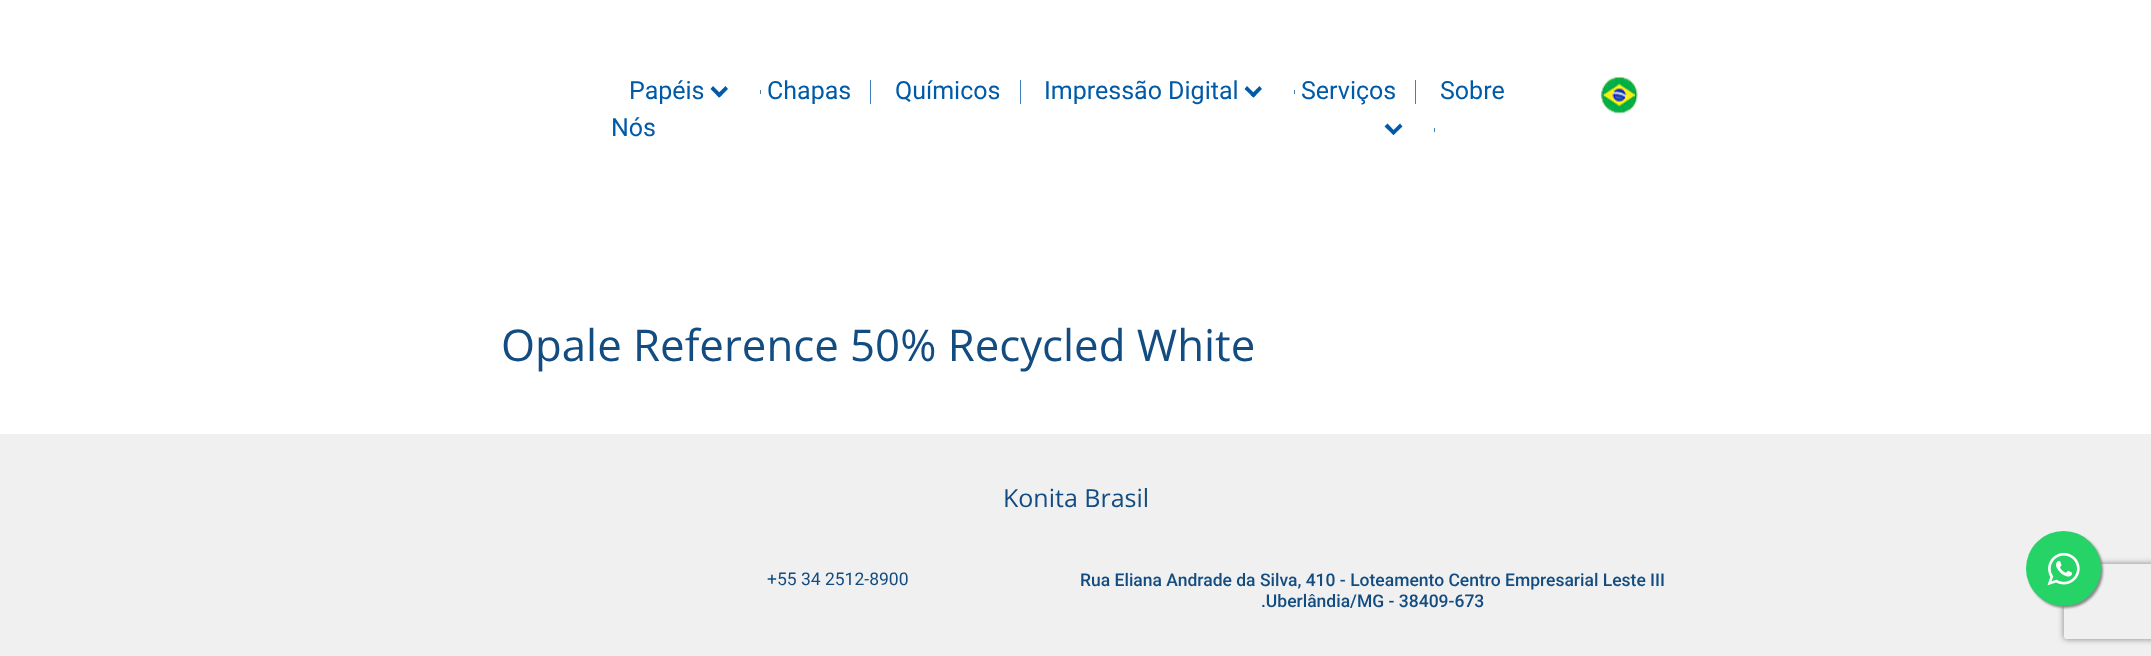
<svg xmlns="http://www.w3.org/2000/svg" width="2151" height="656">
	<defs>
		<clipPath id="clip1"><path d="M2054 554H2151V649H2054ZM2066.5 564H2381.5C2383 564 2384 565 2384 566.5V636.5C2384 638 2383 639 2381.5 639H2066.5C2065 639 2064 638 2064 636.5V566.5C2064 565 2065 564 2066.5 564Z" clip-rule="evenodd" /></clipPath>
	</defs>
	<rect width="100%" height="100%" fill="#FFFFFF" />
	<rect x="1434" y="128" width="1" height="4" fill="#4182BE" />
	<g font-family="Roboto" font-size="25" fill="#005AA8">
		<text x="1440" y="99">Sobre</text>
		<text x="611" y="136">Nós</text>
	</g>
	<path d="M1391 132.5L1400 123.5L1402.5 126.5L1393.5 135Z" fill="#005AA8" />
	<path d="M1387.5 123.5L1396 132.5L1393.5 135L1384.5 126.5Z" fill="#005AA8" />
	<rect x="760" y="90" width="1" height="4" fill="#4182BE" />
	<text x="629" y="99" font-family="Roboto" font-size="25" fill="#005AA8">Papéis</text>
	<path d="M716.5 95L725.5 86L728 89L719.5 97.5Z" fill="#005AA8" />
	<path d="M713 86L722 95L719 97.5L710.5 89Z" fill="#005AA8" />
	<text x="767" y="99" font-family="Roboto" font-size="25" fill="#005AA8">Chapas</text>
	<rect x="870" y="80" width="1" height="24" fill="#4182BE" />
	<text x="895" y="99" font-family="Roboto" font-size="25" fill="#005AA8">Químicos</text>
	<rect x="1020" y="80" width="1" height="24" fill="#4182BE" />
	<rect x="1294" y="90" width="1" height="4" fill="#4182BE" />
	<text x="1044" y="99" font-family="Roboto" font-size="25" fill="#005AA8">Impressão Digital</text>
	<path d="M1250.5 95L1259.5 86L1262 89L1253.5 97.5Z" fill="#005AA8" />
	<path d="M1247 86L1256 95L1253.5 97.5L1244.5 89Z" fill="#005AA8" />
	<text x="1301" y="99" font-family="Roboto" font-size="25" fill="#005AA8">Serviços</text>
	<rect x="1415" y="80" width="1" height="24" fill="#4182BE" />
	<image x="1601" y="77" width="37" height="37" href="assets/img1.png" />
	<text x="501" y="361" font-family="Open Sans" font-size="43.75" fill="#124C80">Opale Reference 50% Recycled White</text>
	<rect x="0" y="434" width="2151" height="222" fill="#F0F0F0" />
	<text x="1003" y="507" font-family="Open Sans" font-size="25" fill="#124C80">Konita Brasil</text>
	<text x="767" y="585" font-family="Roboto" font-size="17.5" fill="#124C80">+55 34 2512-8900</text>
	<g font-family="Roboto" font-size="17.5" font-weight="500" fill="#124C80">
		<text x="1080" y="586">Rua Eliana Andrade da Silva, 410 - Loteamento Centro Empresarial Leste III</text>
		<text x="1261" y="607">.Uberlândia/MG - 38409-673</text>
	</g>
	<rect x="2028" y="533" width="75" height="75" rx="37.5" fill="#888888" filter="blur(1px)" />
	<g clip-path="url(#clip1)">
		<rect x="2064" y="564" width="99" height="75" rx="2.5" fill="#808080" filter="blur(3px)" />
	</g>
	<circle cx="2063.5" cy="568.5" r="37.5" fill="#25D366" />
	<image x="2047" y="552" width="33" height="34" href="assets/img2.png" />
</svg>
